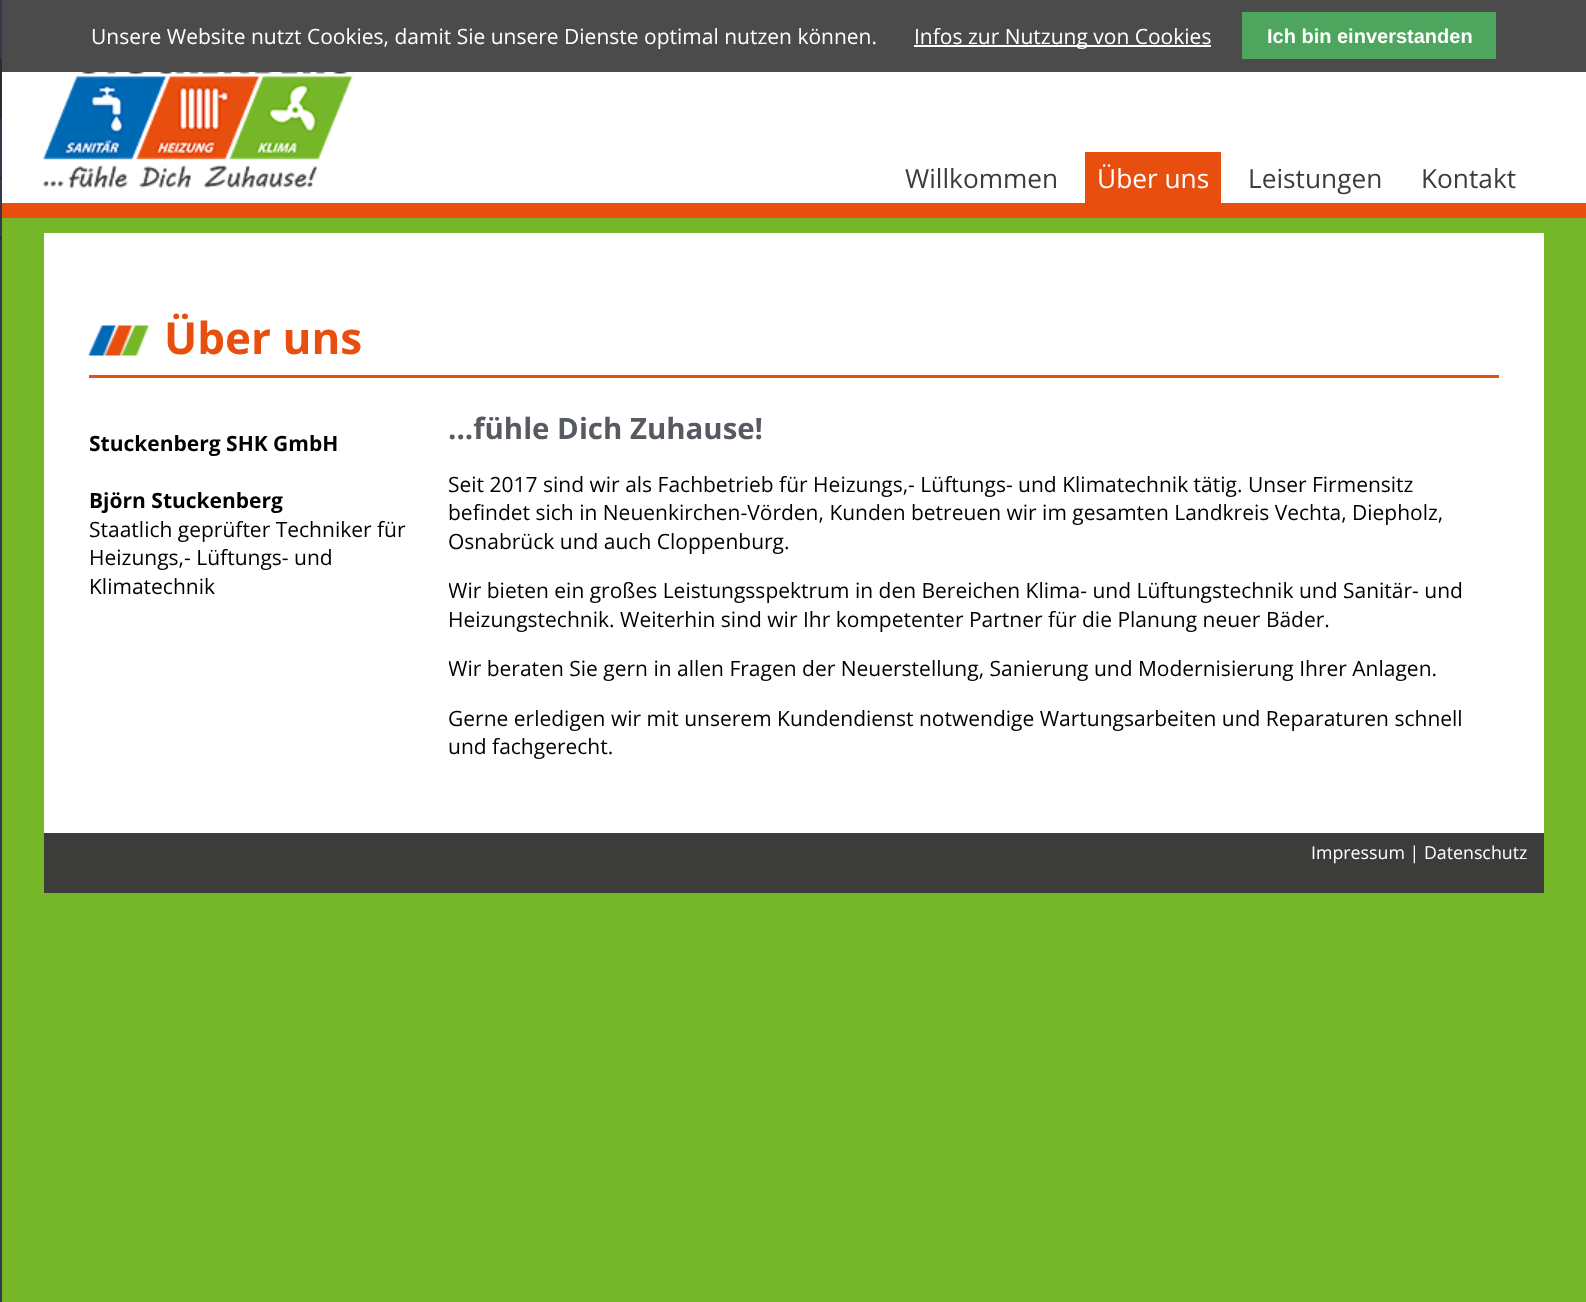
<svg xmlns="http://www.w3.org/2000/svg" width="1586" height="1302">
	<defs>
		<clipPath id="clip1"><rect x="449" y="408" width="1050" height="374" /></clipPath>
	</defs>
	<rect width="100%" height="100%" fill="#76B729" />
	<rect x="0" y="0" width="2" height="1302" fill="#363947" />
	<rect x="0" y="59" width="2" height="60" fill="#282B36" />
	<rect x="0" y="177" width="2" height="2" fill="#282B36" />
	<rect x="0" y="237" width="2" height="2" fill="#282B36" />
	<rect x="2" y="0" width="1584" height="72" fill="#4B4B4B" />
	<text x="91" y="44" font-family="Open Sans" font-size="21" fill="#FFFFFF">Unsere Website nutzt Cookies, damit Sie unsere Dienste optimal nutzen können.</text>
	<rect x="914" y="45" width="297" height="2" fill="#FFFFFF" />
	<text x="914" y="44" font-family="Open Sans" font-size="21" fill="#FFFFFF">Infos zur Nutzung von Cookies</text>
	<rect x="1242" y="12" width="254" height="47" fill="#4EA55E" />
	<text x="1267" y="43" font-family="Liberation Sans" font-size="20" font-weight="700" fill="#FFFFFF">Ich bin einverstanden</text>
	<rect x="2" y="72" width="1584" height="131" fill="#FFFFFF" />
	<rect x="2" y="203" width="1584" height="15" fill="#E84E0E" />
	<image x="43" y="72" width="310" height="116" href="assets/img1.png" />
	<text x="905" y="188" font-family="Open Sans" font-size="26.25" fill="#3C3C3B">Willkommen</text>
	<rect x="1085" y="152" width="136" height="51" fill="#E84E0E" />
	<text x="1097" y="188" font-family="Open Sans" font-size="26.25" fill="#FFFFFF">Über uns</text>
	<g font-family="Open Sans" font-size="26.25" fill="#3C3C3B">
		<text x="1248" y="188">Leistungen</text>
		<text x="1421" y="188">Kontakt</text>
	</g>
	<rect x="44" y="233" width="1500" height="600" fill="#FFFFFF" />
	<image x="88" y="325" width="61" height="31" href="assets/img2.png" />
	<rect x="89" y="375" width="1410" height="3" fill="#E84E0E" />
	<text x="164" y="354" font-family="Open Sans" font-size="44" font-weight="700" fill="#E84E0E">Über uns</text>
	<g font-family="Open Sans" font-size="21" font-weight="700" fill="#000000">
		<text x="89" y="451">Stuckenberg SHK GmbH</text>
		<text x="89" y="508">Björn Stuckenberg</text>
	</g>
	<g font-family="Open Sans" font-size="21" fill="#000000">
		<text x="89" y="537">Staatlich geprüfter Techniker für</text>
		<text x="89" y="565">Heizungs,- Lüftungs- und</text>
		<text x="89" y="594">Klimatechnik</text>
	</g>
	<text x="448" y="439" font-family="Open Sans" font-size="29.4" font-weight="700" fill="#575A60">...fühle Dich Zuhause!</text>
	<g font-family="Open Sans" font-size="21" fill="#000000">
		<text x="448" y="492">Seit 2017 sind wir als Fachbetrieb für Heizungs,- Lüftungs- und Klimatechnik tätig. Unser Firmensitz</text>
		<text x="448" y="520">befindet sich in Neuenkirchen-Vörden, Kunden betreuen wir im gesamten Landkreis Vechta, Diepholz,</text>
		<text x="448" y="549">Osnabrück und auch Cloppenburg.</text>
	</g>
	<g clip-path="url(#clip1)">
		<text x="448" y="598" font-family="Open Sans" font-size="21" fill="#000000">Wir bieten ein großes Leistungsspektrum in den Bereichen Klima- und Lüftungstechnik und Sanitär- und</text>
	</g>
	<text x="448" y="627" font-family="Open Sans" font-size="21" fill="#000000">Heizungstechnik. Weiterhin sind wir Ihr kompetenter Partner für die Planung neuer Bäder.</text>
	<g clip-path="url(#clip1)">
		<text x="448" y="676" font-family="Open Sans" font-size="21" fill="#000000">Wir beraten Sie gern in allen Fragen der Neuerstellung, Sanierung und Modernisierung Ihrer Anlagen.</text>
	</g>
	<g font-family="Open Sans" font-size="21" fill="#000000">
		<text x="448" y="726">Gerne erledigen wir mit unserem Kundendienst notwendige Wartungsarbeiten und Reparaturen schnell</text>
		<text x="448" y="754">und fachgerecht.</text>
	</g>
	<rect x="44" y="833" width="1500" height="60" fill="#3C3C3B" />
	<text x="1311" y="859" font-family="Open Sans" font-size="17.8" fill="#FFFFFF">Impressum | Datenschutz</text>
</svg>
